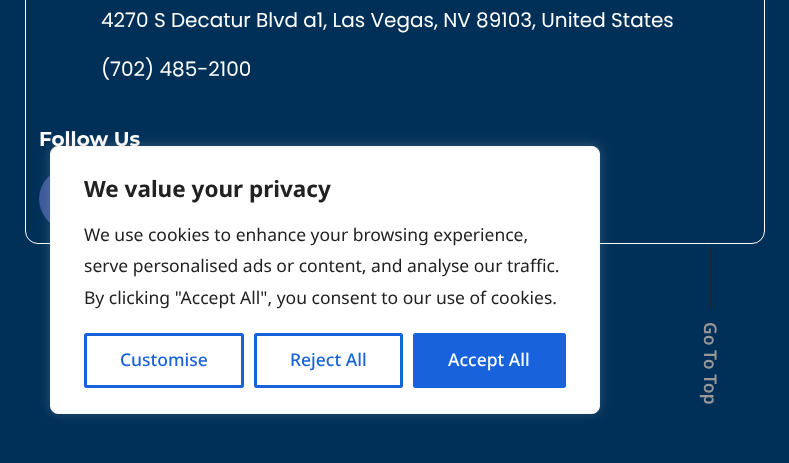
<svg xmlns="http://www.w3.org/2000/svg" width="789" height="463">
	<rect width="100%" height="100%" fill="#003058" />
	<rect x="25.5" y="-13.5" width="739" height="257" rx="12.5" fill="none" stroke="#FFFFFF" />
	<g font-family="Poppins" font-size="20" fill="#FFFFFF">
		<text x="101" y="27">4270 S Decatur Blvd a1, Las Vegas, NV 89103, United States</text>
		<text x="101" y="76">(702) 485-2100</text>
	</g>
	<text x="39" y="146" font-family="Montserrat" font-size="20" font-weight="700" fill="#FFFFFF">Follow Us</text>
	<circle cx="70" cy="199" r="31" fill="#3B5998" />
	<rect x="710" y="247" width="2" height="62" fill="#212529" />
	<text x="704" y="322" transform="rotate(90 704 322)" font-family="Noto Sans" font-size="17.5" font-weight="600" fill="#999999">Go To Top</text>
	<rect x="50" y="145" width="550" height="268" rx="8" fill="#ACABAB" fill-opacity="0.3" filter="blur(6px)" />
	<rect x="50.5" y="146.5" width="549" height="267" rx="7.5" fill="#FFFFFF" stroke="#F4F4F4" />
	<text x="84" y="197" font-family="Noto Sans" font-size="22.5" font-weight="700" fill="#212121">We value your privacy</text>
	<g font-family="Noto Sans" font-size="17.5" fill="#212121">
		<text x="84" y="241">We use cookies to enhance your browsing experience,</text>
		<text x="84" y="272">serve personalised ads or content, and analyse our traffic.</text>
		<text x="84" y="304">By clicking "Accept All", you consent to our use of cookies.</text>
	</g>
	<rect x="85.5" y="334.5" width="157" height="52" rx="1" fill="none" stroke="#1863DC" stroke-width="3" />
	<text x="120" y="366" font-family="Noto Sans" font-size="17.5" font-weight="500" fill="#1863DC">Customise</text>
	<rect x="255.5" y="334.5" width="146" height="52" rx="1" fill="none" stroke="#1863DC" stroke-width="3" />
	<text x="290" y="366" font-family="Noto Sans" font-size="17.5" font-weight="500" fill="#1863DC">Reject All</text>
	<rect x="414.5" y="334.5" width="150" height="52" rx="1" fill="#1863DC" stroke="#1863DC" stroke-width="3" />
	<text x="448" y="366" font-family="Noto Sans" font-size="17.5" font-weight="500" fill="#FFFFFF">Accept All</text>
</svg>
